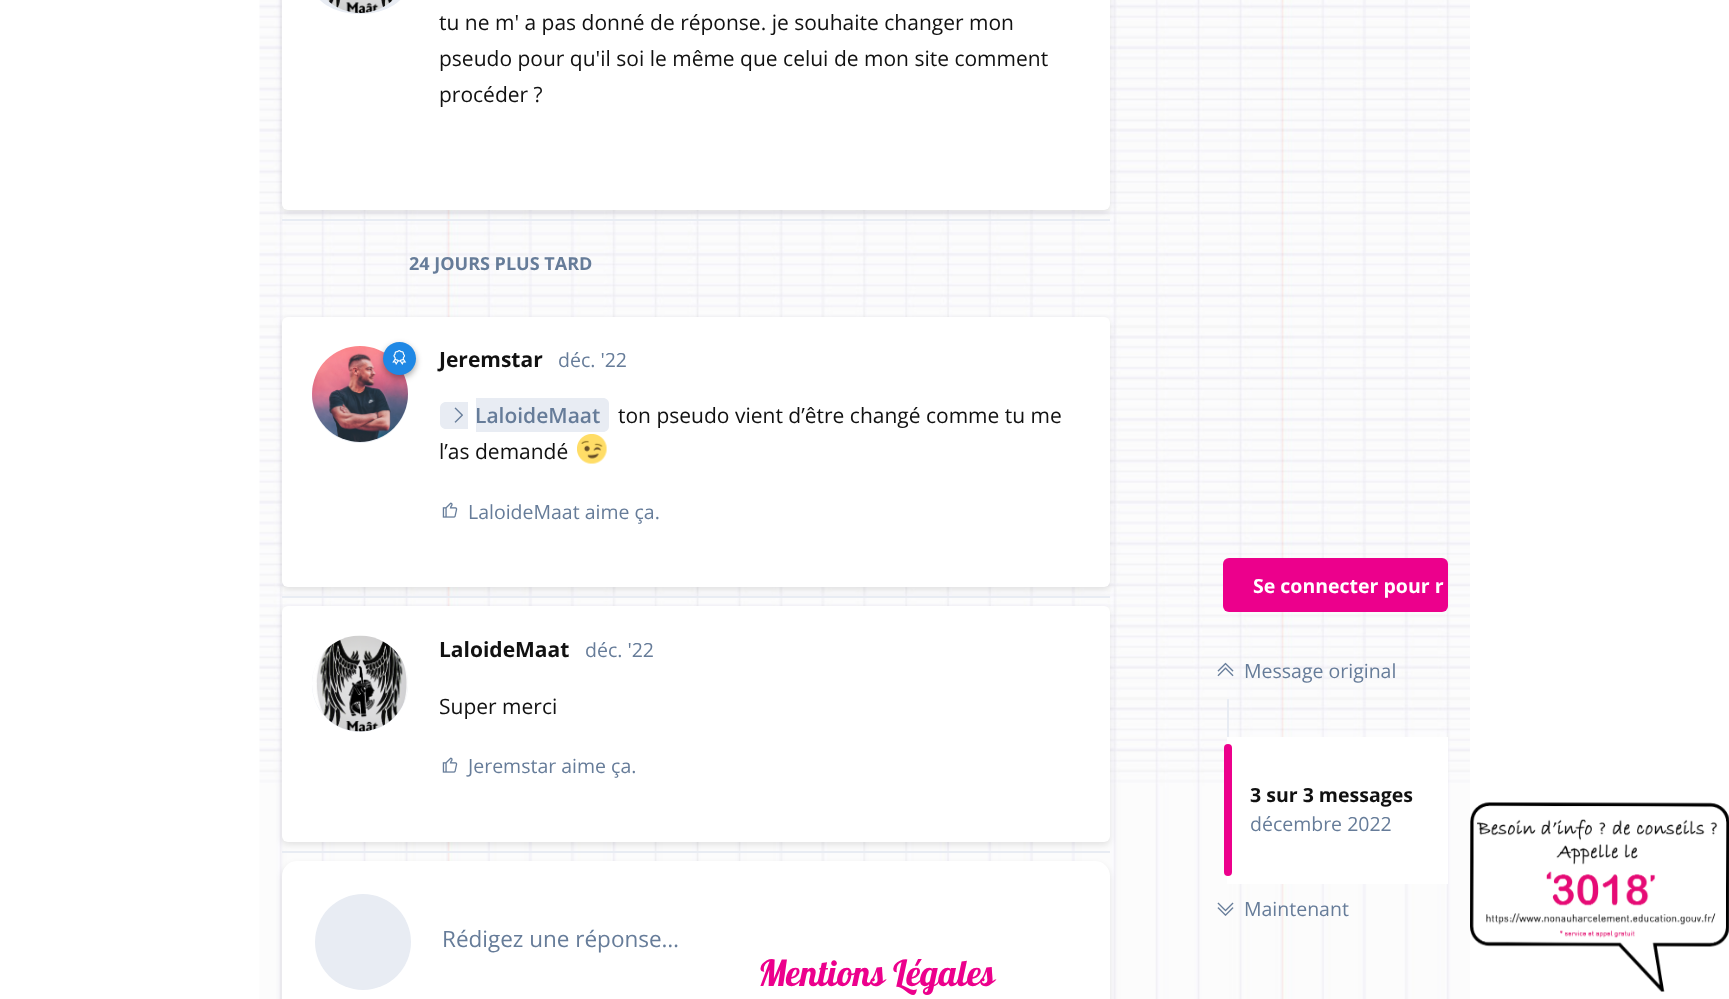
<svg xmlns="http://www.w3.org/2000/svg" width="1729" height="999">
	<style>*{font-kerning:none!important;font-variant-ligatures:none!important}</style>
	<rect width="100%" height="100%" fill="#FFFFFF" />
	<image x="259" y="0" width="1211" height="999" href="assets/img1.png" />
	<rect x="282" y="219" width="828" height="2" fill="#E8ECF3" />
	<rect x="282" y="-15" width="828" height="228" rx="6" fill="#000000" fill-opacity="0.1" filter="blur(3px)" />
	<rect x="282" y="-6" width="828" height="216" rx="6" fill="#FFFFFF" />
	<rect x="312" y="-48" width="96" height="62" rx="48" fill="#E8ECF3" />
	<image x="327" y="0" width="66" height="13" href="assets/img2.png" />
	<g font-family="Open Sans" font-size="21" fill="#111111">
		<text x="439" y="30">tu ne m' a pas donné de réponse. je souhaite changer mon</text>
		<text x="439" y="66">pseudo pour qu'il soi le même que celui de mon site comment</text>
		<text x="439" y="102">procéder ?</text>
	</g>
	<rect x="282" y="596" width="828" height="2" fill="#E8ECF3" />
	<text x="409" y="270" font-family="Open Sans" font-size="18" font-weight="700" fill="#667C99">24 JOURS PLUS TARD</text>
	<rect x="282" y="320" width="828" height="270" rx="6" fill="#000000" fill-opacity="0.1" filter="blur(3px)" />
	<rect x="282" y="317" width="828" height="270" rx="6" fill="#FFFFFF" />
	<circle cx="360" cy="395" r="48" fill="#E8ECF3" />
	<image x="312" y="346" width="96" height="96" href="assets/img4.png" />
	<rect x="383" y="345" width="33" height="33" rx="16.5" fill="#000000" fill-opacity="0.35" filter="blur(3px)" />
	<circle cx="399.5" cy="358.5" r="16.5" fill="#1F88E5" />
	<image x="392" y="350" width="15" height="15" href="assets/img3.png" />
	<text x="439" y="367" font-family="Open Sans" font-size="21" font-weight="700" fill="#111111">Jeremstar</text>
	<text x="558" y="367" font-family="Open Sans" font-size="19.5" fill="#667C99">déc. '22</text>
	<path d="M446 402H468V429H446C442.5 429 440 426.5 440 423V408C440 404.5 442.5 402 446 402Z" fill="#E8ECF3" />
	<path d="M476 398H603C606.5 398 609 400.5 609 404V426C609 429.5 606.5 432 603 432H476Z" fill="#E8ECF3" />
	<image x="454" y="407" width="9" height="16" href="assets/img5.png" />
	<text x="475" y="423" font-family="Open Sans" font-size="21" font-weight="600" fill="#667C99">LaloideMaat</text>
	<g font-family="Open Sans" font-size="21" fill="#111111">
		<text x="618" y="423">ton pseudo vient d’être changé comme tu me</text>
		<text x="439" y="459">l’as demandé</text>
	</g>
	<image x="577" y="434" width="30" height="30" href="assets/img6.png" />
	<image x="442" y="502" width="16" height="16" href="assets/img7.png" />
	<text x="468" y="519" font-family="Open Sans" font-size="19.5" fill="#667C99">LaloideMaat aime ça.</text>
	<rect x="282" y="851" width="828" height="2" fill="#E8ECF3" />
	<rect x="282" y="609" width="828" height="236" rx="6" fill="#000000" fill-opacity="0.1" filter="blur(3px)" />
	<rect x="282" y="606" width="828" height="236" rx="6" fill="#FFFFFF" />
	<circle cx="360" cy="684" r="48" fill="#E8ECF3" />
	<image x="312" y="635" width="96" height="97" href="assets/img8.png" />
	<text x="439" y="657" font-family="Open Sans" font-size="21" font-weight="700" fill="#111111">LaloideMaat</text>
	<text x="585" y="657" font-family="Open Sans" font-size="19.5" fill="#667C99">déc. '22</text>
	<text x="439" y="714" font-family="Open Sans" font-size="21" fill="#111111">Super merci</text>
	<image x="442" y="757" width="16" height="16" href="assets/img7.png" />
	<text x="468" y="773" font-family="Open Sans" font-size="19.5" fill="#667C99">Jeremstar aime ça.</text>
	<rect x="282" y="864" width="828" height="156" rx="15" fill="#000000" fill-opacity="0.1" filter="blur(3px)" />
	<rect x="282" y="861" width="828" height="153" rx="15" fill="#FFFFFF" />
	<circle cx="363" cy="942" r="48" fill="#E8ECF3" />
	<text x="442" y="947" font-family="Open Sans" font-size="22.5" fill="#667C99">Rédigez une réponse…</text>
	<rect x="1223" y="558" width="225" height="54" rx="6" fill="#EC008C" />
	<text x="1253" y="593" font-family="Open Sans" font-size="19.5" font-weight="700" fill="#FFFFFF">Se connecter pour r</text>
	<image x="1217" y="662" width="17" height="15" href="assets/img9.png" />
	<text x="1244" y="678" font-family="Open Sans" font-size="19.5" fill="#667C99">Message original</text>
	<rect x="1227" y="699" width="2" height="38" fill="#E8ECF3" />
	<rect x="1227" y="737" width="221" height="147" fill="#FFFFFF" />
	<rect x="1224" y="744" width="8" height="132" rx="4" fill="#EC008C" />
	<text x="1250" y="802" font-family="Open Sans" font-size="19.5" font-weight="700" fill="#111111">3 sur 3 messages</text>
	<text x="1250" y="831" font-family="Open Sans" font-size="19.5" fill="#667C99">décembre 2022</text>
	<image x="1217" y="902" width="17" height="14" href="assets/img10.png" />
	<text x="1244" y="916" font-family="Open Sans" font-size="19.5" fill="#667C99">Maintenant</text>
	<text x="758" y="986" font-family="Lobster" font-size="36" fill="#EC008C">Mentions Légales</text>
	<image x="1470" y="802" width="259" height="190" href="assets/img11.png" />
</svg>
